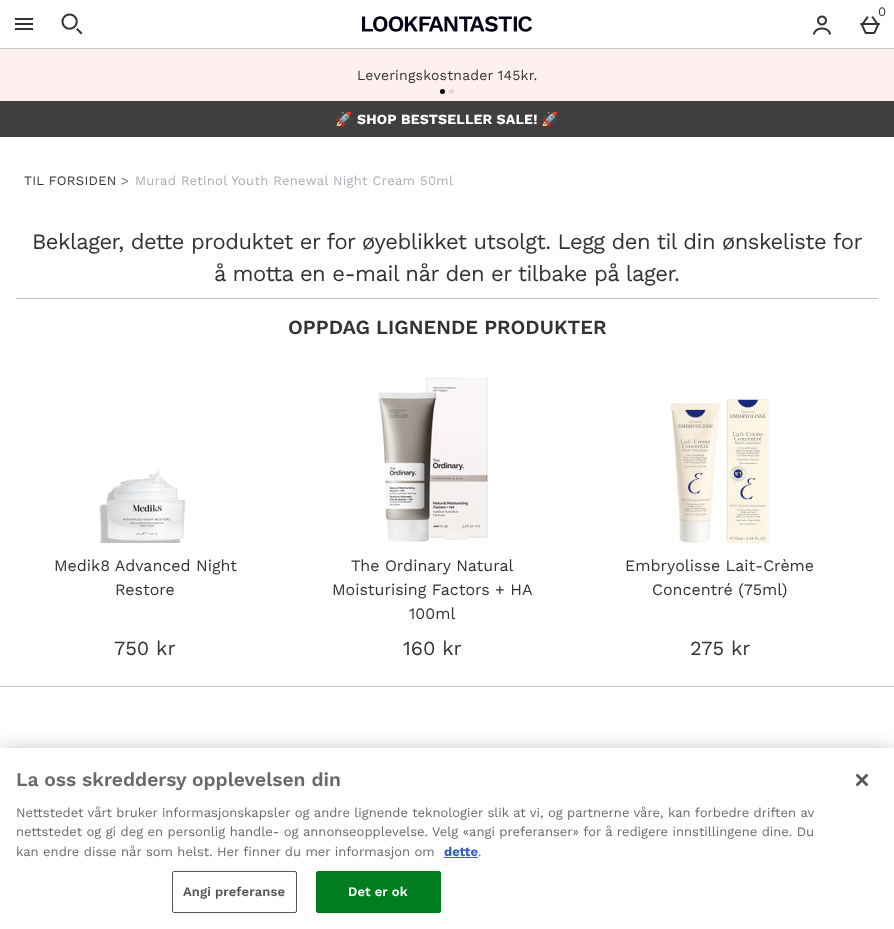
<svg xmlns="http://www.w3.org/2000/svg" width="894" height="929">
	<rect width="100%" height="100%" fill="#FFFFFF" />
	<rect x="0" y="48" width="894" height="1" fill="#C4C4C4" />
	<image x="860" y="16" width="20" height="18" href="assets/img1.png" />
	<text x="878" y="16" font-family="Work Sans" font-size="13" letter-spacing="0.3" fill="#333333">0</text>
	<image x="15" y="18" width="18" height="12" href="assets/img2.png" />
	<image x="61" y="13" width="22" height="22" href="assets/img3.png" />
	<image x="362" y="16" width="170" height="16" href="assets/img4.png" />
	<image x="813" y="15" width="18" height="20" href="assets/img5.png" />
	<rect x="0" y="49" width="894" height="52" fill="#FDF0EE" />
	<text x="357" y="80" font-family="Work Sans" font-size="14" letter-spacing="0.2" fill="#333333">Leveringskostnader 145kr.</text>
	<circle cx="442.5" cy="91.5" r="2.5" fill="#000000" />
	<circle cx="451.5" cy="91.5" r="2.5" fill="#E4D8D6" />
	<rect x="0" y="101" width="894" height="36" fill="#3F3F3F" />
	<text x="335" y="124" font-family="Noto Color Emoji" font-size="14" font-weight="700" letter-spacing="0.2" fill="#FFFFFF">🚀</text>
	<text x="357" y="124" font-family="Work Sans" font-size="14" font-weight="700" letter-spacing="0.2" fill="#FFFFFF">SHOP BESTSELLER SALE!</text>
	<text x="541" y="124" font-family="Noto Color Emoji" font-size="14" font-weight="700" letter-spacing="0.2" fill="#FFFFFF">🚀</text>
	<text x="24" y="185" font-family="Work Sans" font-size="13" letter-spacing="0.3" fill="#333333">TIL FORSIDEN</text>
	<text x="121" y="185" font-family="Work Sans" font-size="13" letter-spacing="0.3" fill="#747583">&gt;</text>
	<text x="135" y="185" font-family="Work Sans" font-size="13" letter-spacing="0.3" fill="#ACACB5">Murad Retinol Youth Renewal Night Cream 50ml</text>
	<rect x="0" y="686" width="894" height="1" fill="#C4C4C4" />
	<g font-family="Work Sans" font-size="22" letter-spacing="-0.5" fill="#333333">
		<text x="32" y="249">Beklager, dette produktet er for øyeblikket utsolgt. Legg den til din ønskeliste for</text>
		<text x="214" y="281">å motta en e-mail når den er tilbake på lager.</text>
	</g>
	<rect x="16" y="298" width="862" height="1" fill="#C4C4C4" />
	<text x="288" y="334" font-family="Work Sans" font-size="20" font-weight="600" fill="#333333">OPPDAG LIGNENDE PRODUKTER</text>
	<image x="99" y="469" width="87" height="74" href="assets/img6.png" />
	<g font-family="Work Sans" font-size="16" fill="#333333">
		<text x="54" y="571">Medik8 Advanced Night</text>
		<text x="115" y="595">Restore</text>
	</g>
	<text x="114" y="655" font-family="Work Sans" font-size="20" fill="#333333">750 kr</text>
	<image x="378" y="377" width="110" height="165" href="assets/img7.png" />
	<g font-family="Work Sans" font-size="16" fill="#333333">
		<text x="351" y="571">The Ordinary Natural</text>
		<text x="332" y="595">Moisturising Factors + HA</text>
		<text x="409" y="619">100ml</text>
	</g>
	<text x="403" y="655" font-family="Work Sans" font-size="20" fill="#333333">160 kr</text>
	<image x="670" y="395" width="100" height="148" href="assets/img8.png" />
	<g font-family="Work Sans" font-size="16" fill="#333333">
		<text x="625" y="571">Embryolisse Lait-Crème</text>
		<text x="652" y="595">Concentré (75ml)</text>
	</g>
	<text x="690" y="655" font-family="Work Sans" font-size="20" fill="#333333">275 kr</text>
	<rect x="0" y="748" width="894" height="181" fill="#000000" fill-opacity="0.2" filter="blur(9px)" />
	<rect x="0" y="748" width="894" height="181" fill="#FFFFFF" />
	<text x="16" y="786" font-family="Work Sans" font-size="19.25" font-weight="600" fill="#696969">La oss skreddersy opplevelsen din</text>
	<g font-family="Work Sans" font-size="13" fill="#696969">
		<text x="16" y="817">Nettstedet vårt bruker informasjonskapsler og andre lignende teknologier slik at vi, og partnerne våre, kan forbedre driften av</text>
		<text x="16" y="836">nettstedet og gi deg en personlig handle- og annonseopplevelse. Velg «angi preferanser» for å redigere innstillingene dine. Du</text>
		<text x="16" y="856">kan endre disse når som helst. Her finner du mer informasjon om</text>
	</g>
	<text x="444" y="856" font-family="Work Sans" font-size="13" font-weight="700" fill="#3860BE">dette</text>
	<rect x="444" y="857" width="34" height="1" fill="#3860BE" />
	<text x="478" y="856" font-family="Work Sans" font-size="13" fill="#696969">.</text>
	<rect x="172.5" y="871.5" width="124" height="41" rx="1.5" fill="none" stroke="#555555" />
	<text x="183" y="896" font-family="Work Sans" font-size="13" font-weight="600" letter-spacing="0.1" fill="#555555">Angi preferanse</text>
	<rect x="316.5" y="871.5" width="124" height="41" rx="1.5" fill="#007D1E" stroke="#007D1E" />
	<text x="348" y="896" font-family="Work Sans" font-size="13" font-weight="600" letter-spacing="0.1" fill="#FFFFFF">Det er ok</text>
	<image x="856" y="774" width="12" height="12" href="assets/img9.png" />
</svg>
